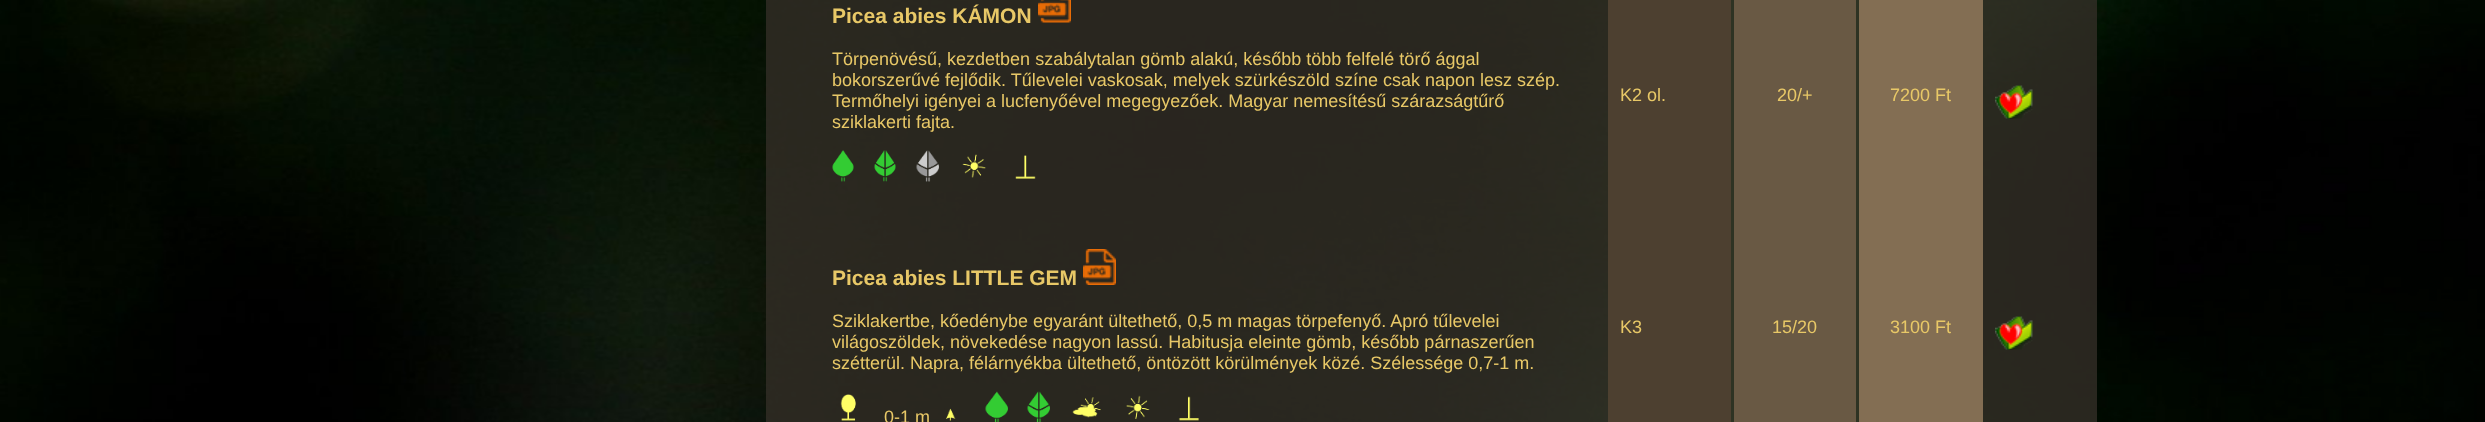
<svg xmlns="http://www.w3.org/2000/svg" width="2485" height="422">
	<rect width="100%" height="100%" fill="#FFFFFF" />
	<image x="0" y="0" width="2485" height="422" href="assets/img1.png" />
	<rect x="766" y="0" width="1331" height="422" fill="#332E27" fill-opacity="0.8" />
	<text x="832" y="23" font-family="Liberation Sans" font-size="21" font-weight="700" fill="#E8C867">Picea abies KÁMON</text>
	<image x="1038" y="0" width="33" height="23" href="assets/img2.png" />
	<g font-family="Liberation Sans" font-size="18" fill="#E8C867">
		<text x="832" y="65">Törpenövésű, kezdetben szabálytalan gömb alakú, később több felfelé törő ággal</text>
		<text x="832" y="86">bokorszerűvé fejlődik. Tűlevelei vaskosak, melyek szürkészöld színe csak napon lesz szép.</text>
		<text x="832" y="107">Termőhelyi igényei a lucfenyőével megegyezőek. Magyar nemesítésű szárazságtűrő</text>
		<text x="832" y="128">sziklakerti fajta.</text>
	</g>
	<image x="832" y="150" width="22" height="32" href="assets/img3.png" />
	<image x="874" y="150" width="22" height="32" href="assets/img4.png" />
	<image x="916" y="150" width="23" height="32" href="assets/img5.png" />
	<image x="962" y="154" width="24" height="24" href="assets/img6.png" />
	<image x="1015" y="155" width="21" height="24" href="assets/img7.png" />
	<rect x="1608" y="0" width="123" height="422" fill="#4D4030" />
	<text x="1620" y="101" font-family="Liberation Sans" font-size="18" fill="#E8C867">K2 ol.</text>
	<rect x="1734" y="0" width="122" height="422" fill="#695944" />
	<text x="1777" y="101" font-family="Liberation Sans" font-size="18" fill="#E8C867">20/+</text>
	<rect x="1859" y="0" width="124" height="422" fill="#836E53" />
	<text x="1890" y="101" font-family="Liberation Sans" font-size="18" fill="#E8C867">7200 Ft</text>
	<image x="1995" y="85" width="38" height="34" href="assets/img8.png" />
	<text x="832" y="285" font-family="Liberation Sans" font-size="21" font-weight="700" fill="#E8C867">Picea abies LITTLE GEM</text>
	<image x="1083" y="249" width="33" height="36" href="assets/img9.png" />
	<g font-family="Liberation Sans" font-size="18" fill="#E8C867">
		<text x="832" y="327">Sziklakertbe, kőedénybe egyaránt ültethető, 0,5 m magas törpefenyő. Apró tűlevelei</text>
		<text x="832" y="348">világoszöldek, növekedése nagyon lassú. Habitusja eleinte gömb, később párnaszerűen</text>
		<text x="832" y="369">szétterül. Napra, félárnyékba ültethető, öntözött körülmények közé. Szélessége 0,7-1 m.</text>
	</g>
	<image x="840" y="394" width="16" height="27" href="assets/img10.png" />
	<text x="884" y="423" font-family="Liberation Sans" font-size="18" fill="#E8C867">0-1 m</text>
	<image x="946" y="408" width="10" height="13" href="assets/img11.png" />
	<image x="985" y="391" width="23" height="31" href="assets/img12.png" />
	<image x="1027" y="391" width="23" height="31" href="assets/img13.png" />
	<image x="1072" y="397" width="29" height="21" href="assets/img14.png" />
	<image x="1126" y="395" width="24" height="24" href="assets/img15.png" />
	<image x="1178" y="396" width="21" height="25" href="assets/img16.png" />
	<text x="1620" y="333" font-family="Liberation Sans" font-size="18" fill="#E8C867">K3</text>
	<rect x="1856" y="0" width="3" height="422" fill="#2E3323" />
	<rect x="1731" y="0" width="3" height="422" fill="#2E3323" />
	<g font-family="Liberation Sans" font-size="18" fill="#E8C867">
		<text x="1772" y="333">15/20</text>
		<text x="1890" y="333">3100 Ft</text>
	</g>
	<image x="1995" y="316" width="38" height="34" href="assets/img17.png" />
</svg>
